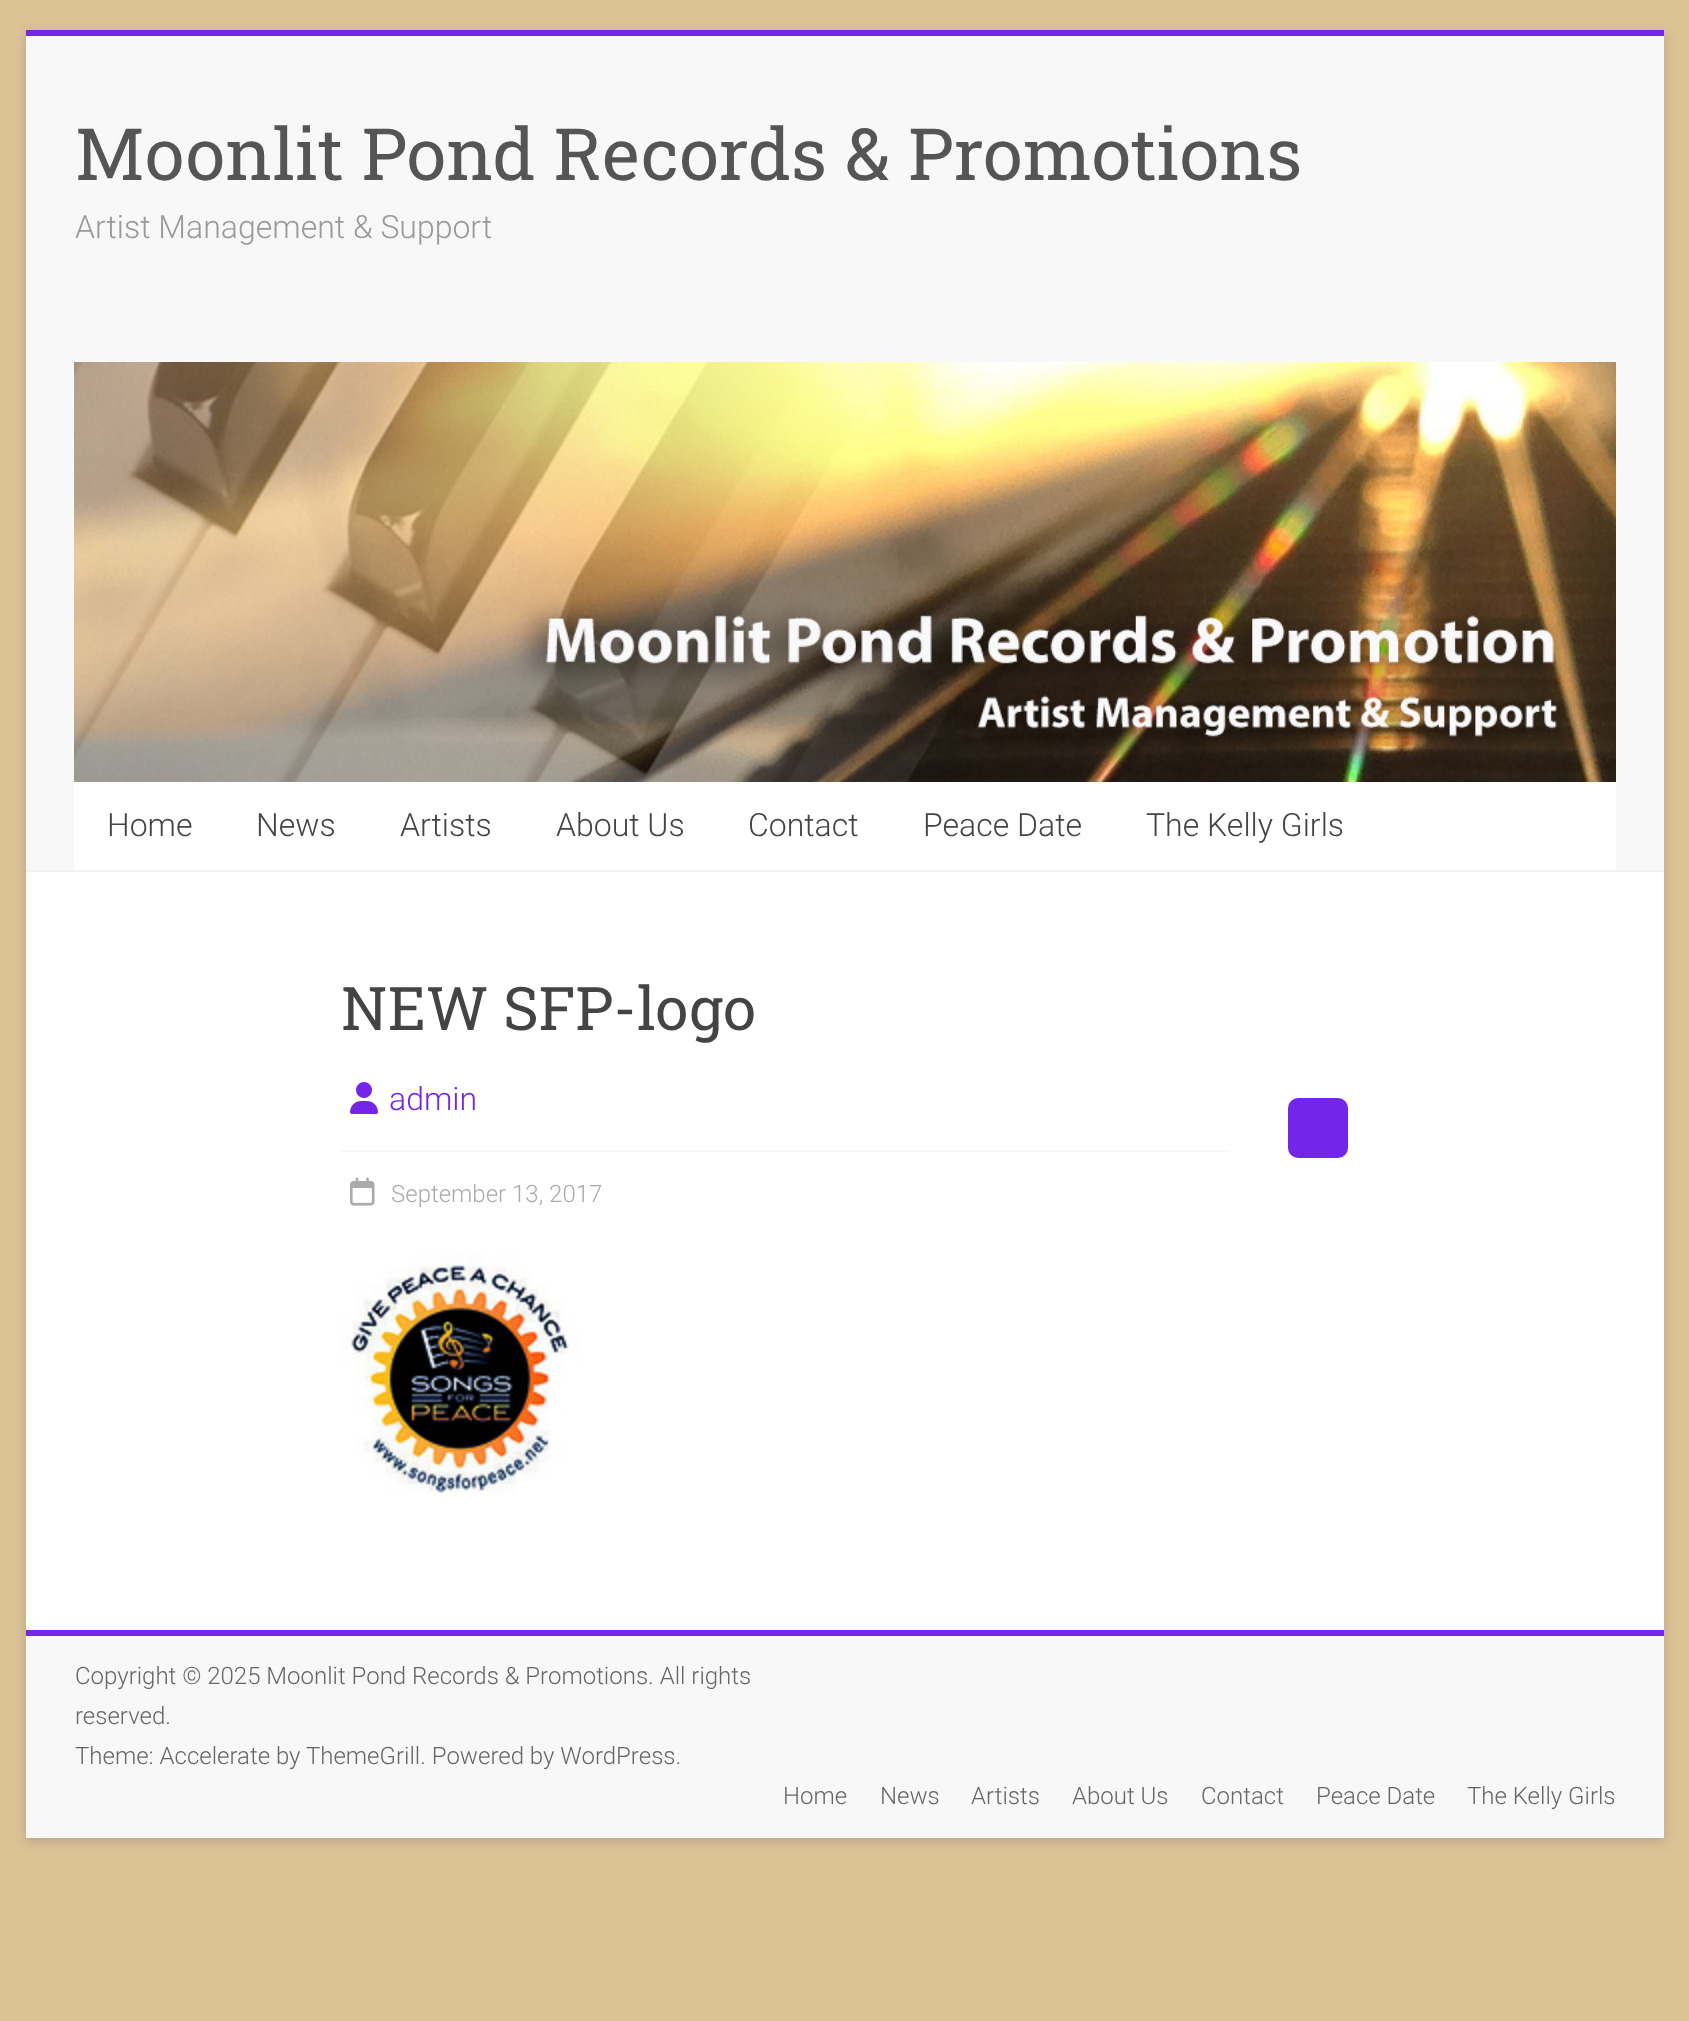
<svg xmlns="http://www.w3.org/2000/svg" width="1689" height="2021">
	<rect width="100%" height="100%" fill="#DDC296" />
	<rect x="26" y="34" width="1638" height="1808" fill="#646464" fill-opacity="0.3" filter="blur(6px)" />
	<rect x="26" y="872" width="1638" height="758" fill="#FFFFFF" />
	<rect x="26" y="30" width="1638" height="6" fill="#7325E8" />
	<rect x="26" y="36" width="1638" height="834" fill="#F8F8F8" />
	<rect x="26" y="870" width="1638" height="2" fill="#F2F2F2" />
	<text x="75" y="180" font-family="Roboto Slab" font-size="72" fill="#555555">Moonlit Pond Records &amp; Promotions</text>
	<text x="75" y="238" font-family="Roboto" font-size="32" font-weight="300" fill="#999999">Artist Management &amp; Support</text>
	<image x="74" y="362" width="1542" height="420" href="assets/img1.png" />
	<rect x="74" y="782" width="1542" height="88" fill="#FFFFFF" />
	<g font-family="Roboto" font-size="32" font-weight="300" fill="#444444">
		<text x="107" y="836">Home</text>
		<text x="256" y="836">News</text>
		<text x="400" y="836">Artists</text>
		<text x="556" y="836">About Us</text>
		<text x="748" y="836">Contact</text>
		<text x="923" y="836">Peace Date</text>
		<text x="1146" y="836">The Kelly Girls</text>
	</g>
	<text x="341" y="1030" font-family="Roboto Slab" font-size="60" fill="#444444">NEW SFP-logo</text>
	<image x="350" y="1082" width="28" height="32" href="assets/img2.png" />
	<text x="389" y="1110" font-family="Roboto" font-size="32" font-weight="300" fill="#7325E8">admin</text>
	<rect x="340" y="1150" width="890" height="2" fill="#F8F8F8" />
	<rect x="1288" y="1098" width="60" height="60" rx="10" fill="#7325E8" />
	<image x="350" y="1177" width="25" height="29" href="assets/img3.png" />
	<text x="391" y="1202" font-family="Roboto" font-size="24" font-weight="300" fill="#AAAAAA">September 13, 2017</text>
	<image x="340" y="1254" width="240" height="240" href="assets/img4.png" />
	<rect x="26" y="1636" width="1638" height="202" fill="#F8F8F8" />
	<rect x="26" y="1630" width="1638" height="6" fill="#7325E8" />
	<g font-family="Roboto" font-size="24" font-weight="300" fill="#666666">
		<text x="75" y="1684">Copyright © 2025 Moonlit Pond Records &amp; Promotions. All rights</text>
		<text x="75" y="1724">reserved.</text>
		<text x="75" y="1764">Theme: Accelerate by ThemeGrill. Powered by WordPress.</text>
		<text x="783" y="1804">Home</text>
		<text x="880" y="1804">News</text>
		<text x="971" y="1804">Artists</text>
		<text x="1072" y="1804">About Us</text>
		<text x="1201" y="1804">Contact</text>
		<text x="1316" y="1804">Peace Date</text>
		<text x="1467" y="1804">The Kelly Girls</text>
	</g>
</svg>
